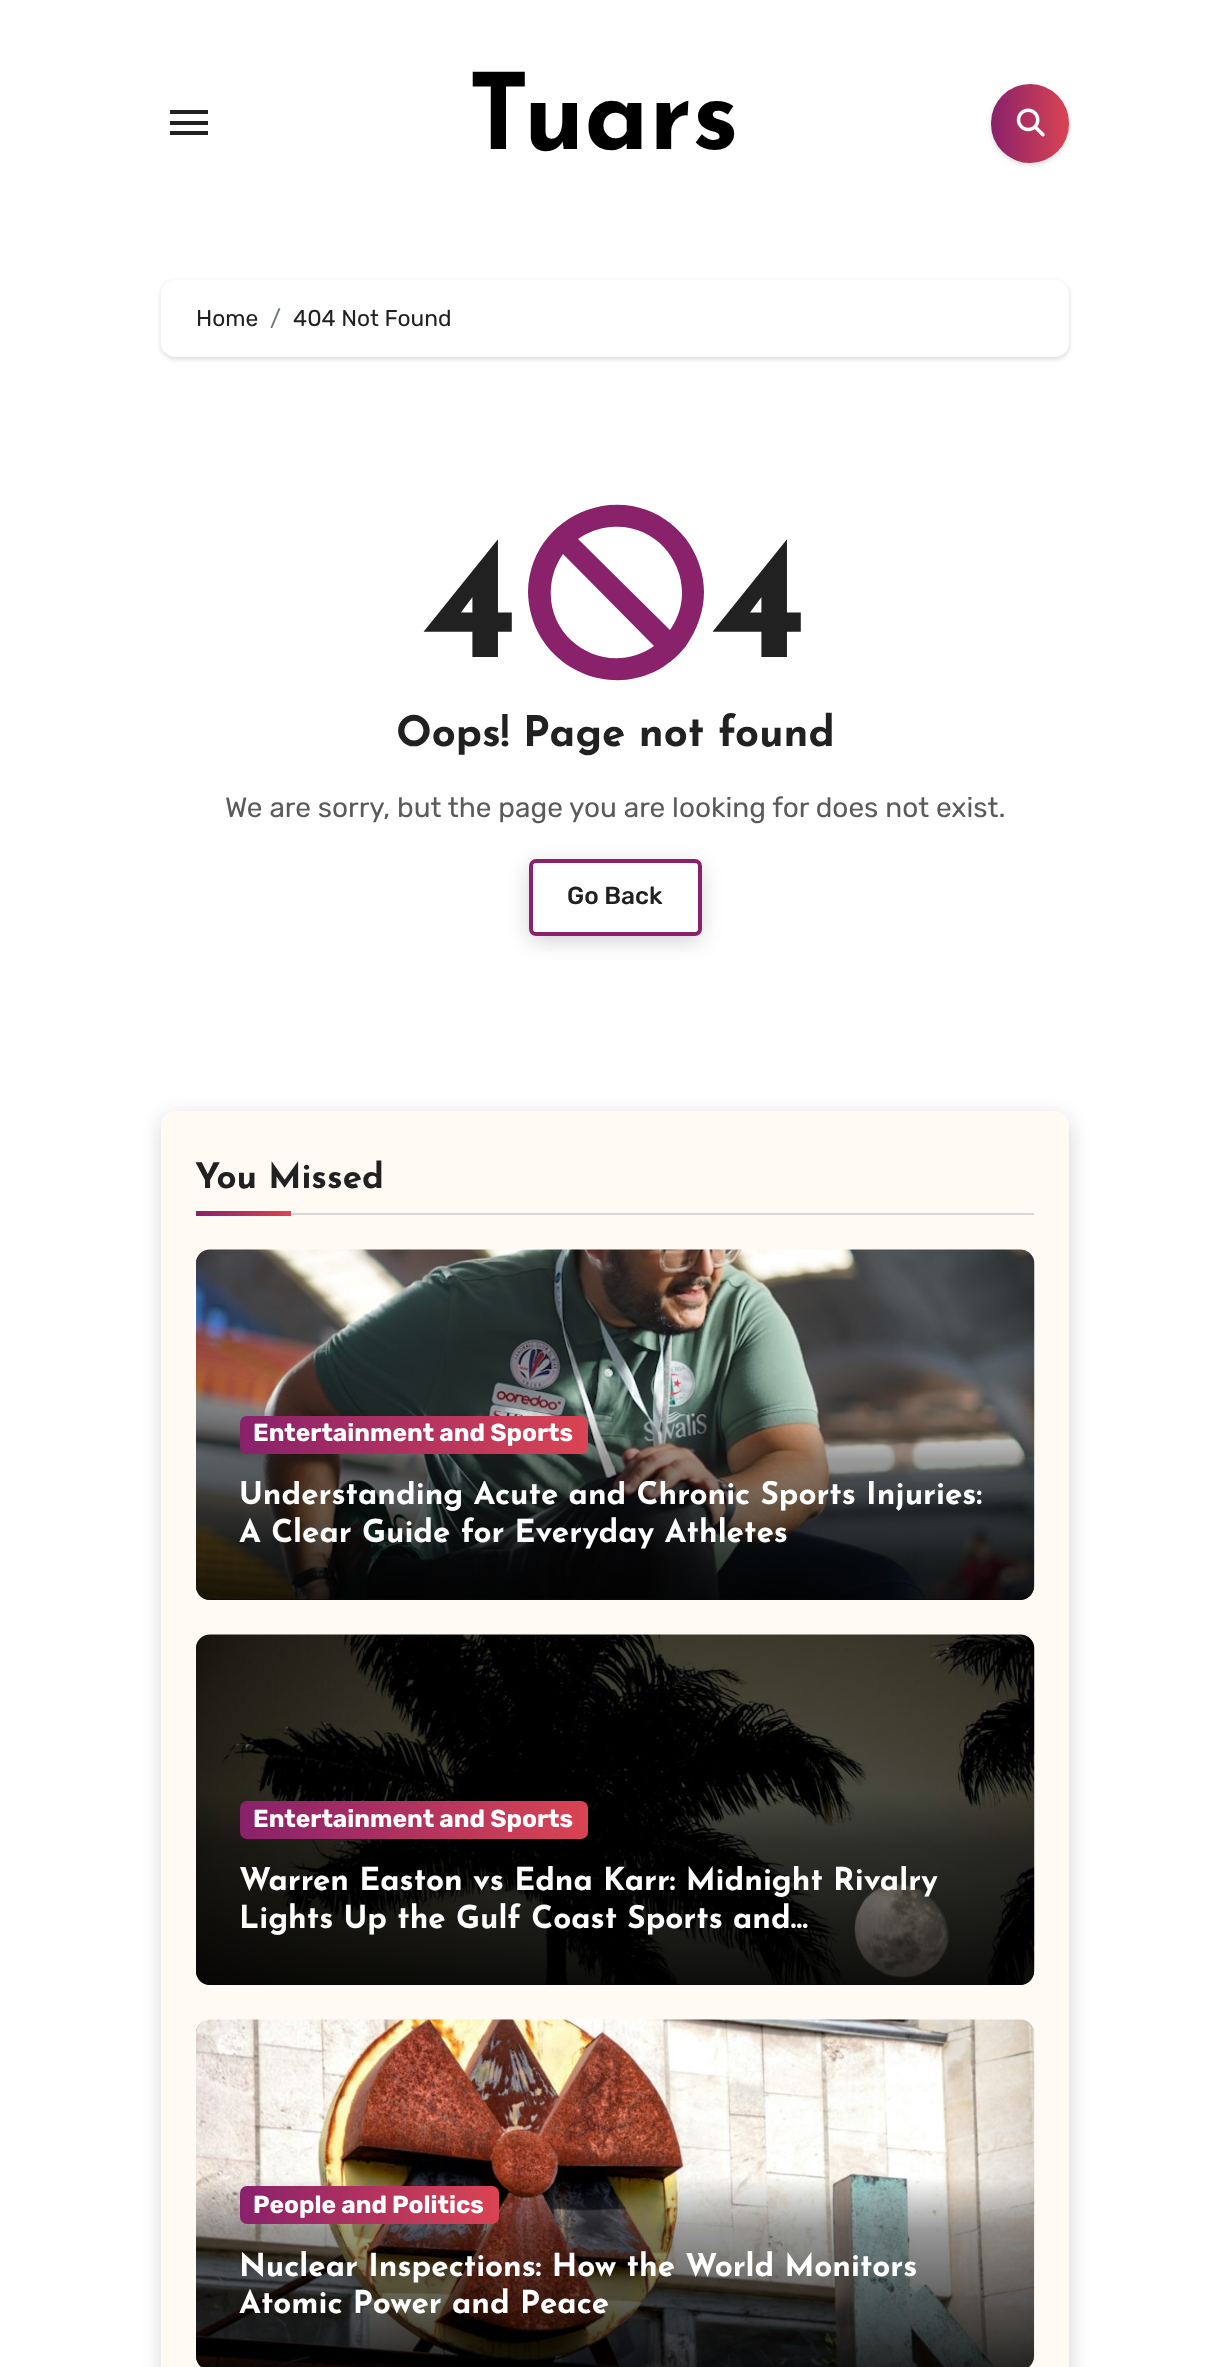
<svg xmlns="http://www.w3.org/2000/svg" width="1230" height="2367">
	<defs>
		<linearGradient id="g1" gradientUnits="userSpaceOnUse" x1="991" y1="123" x2="1069" y2="123"><stop offset="0" stop-color="#89216B" /><stop offset="1" stop-color="#DA4453" /></linearGradient>
		<clipPath id="clip1"><path d="M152 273H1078V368H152ZM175 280H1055C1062.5 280 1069 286.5 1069 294V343C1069 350.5 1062.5 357 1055 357H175C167.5 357 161 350.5 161 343V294C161 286.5 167.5 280 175 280Z" clip-rule="evenodd" /></clipPath>
		<clipPath id="clip2"><path d="M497 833H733V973H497ZM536 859H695C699 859 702 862 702 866V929C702 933 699 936 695 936H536C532 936 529 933 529 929V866C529 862 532 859 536 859Z" clip-rule="evenodd" /></clipPath>
		<linearGradient id="g2" gradientUnits="userSpaceOnUse" x1="196" y1="1214" x2="291" y2="1214"><stop offset="0" stop-color="#89216B" /><stop offset="1" stop-color="#DA4453" /></linearGradient>
		<linearGradient id="g3" gradientUnits="userSpaceOnUse" x1="615" y1="1250" x2="615" y2="1600"><stop offset="0" stop-color="#000000" stop-opacity="0" /><stop offset="0.45" stop-color="#000000" stop-opacity="0" /><stop offset="0.6" stop-color="#000000" stop-opacity="0.4" /><stop offset="1" stop-color="#000000" stop-opacity="0.85" /></linearGradient>
		<linearGradient id="g4" gradientUnits="userSpaceOnUse" x1="240" y1="1435" x2="588" y2="1435"><stop offset="0" stop-color="#89216B" /><stop offset="1" stop-color="#DA4453" /></linearGradient>
		<clipPath id="clip3"><rect x="240" y="1481" width="751" height="75" /></clipPath>
		<linearGradient id="g5" gradientUnits="userSpaceOnUse" x1="615" y1="1635" x2="615" y2="1985"><stop offset="0" stop-color="#000000" stop-opacity="0" /><stop offset="0.45" stop-color="#000000" stop-opacity="0" /><stop offset="0.6" stop-color="#000000" stop-opacity="0.4" /><stop offset="1" stop-color="#000000" stop-opacity="0.85" /></linearGradient>
		<linearGradient id="g6" gradientUnits="userSpaceOnUse" x1="240" y1="1820" x2="588" y2="1820"><stop offset="0" stop-color="#89216B" /><stop offset="1" stop-color="#DA4453" /></linearGradient>
		<clipPath id="clip4"><rect x="240" y="1866" width="751" height="75" /></clipPath>
		<linearGradient id="g7" gradientUnits="userSpaceOnUse" x1="615" y1="2020" x2="615" y2="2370"><stop offset="0" stop-color="#000000" stop-opacity="0" /><stop offset="0.45" stop-color="#000000" stop-opacity="0" /><stop offset="0.6" stop-color="#000000" stop-opacity="0.4" /><stop offset="1" stop-color="#000000" stop-opacity="0.85" /></linearGradient>
		<linearGradient id="g8" gradientUnits="userSpaceOnUse" x1="240" y1="2205" x2="499" y2="2205"><stop offset="0" stop-color="#89216B" /><stop offset="1" stop-color="#DA4453" /></linearGradient>
	</defs>
	<rect width="100%" height="100%" fill="#FFFFFF" />
	<rect x="170" y="110" width="38" height="4" fill="#212121" />
	<rect x="170" y="121" width="38" height="4" fill="#212121" />
	<rect x="170" y="131" width="38" height="4" fill="#212121" />
	<text x="468" y="149" font-family="Josefin Sans" font-size="105" font-weight="700" fill="#000000">Tuars</text>
	<rect x="991" y="86" width="78" height="79" rx="39" fill="#000000" fill-opacity="0.15" filter="blur(2.5px)" />
	<rect x="991" y="84" width="78" height="79" rx="39" fill="url(#g1)" />
	<image x="1016" y="108" width="29" height="29" href="assets/img1.png" />
	<g clip-path="url(#clip1)">
		<rect x="161" y="282" width="908" height="77" rx="14" fill="#000000" fill-opacity="0.15" filter="blur(2.5px)" />
	</g>
	<text x="196" y="326" font-family="Rubik" font-size="22.75" font-weight="300" fill="#212121">Home</text>
	<text x="270" y="326" font-family="Rubik" font-size="22.75" font-weight="300" fill="#6C757D">/</text>
	<text x="293" y="326" font-family="Rubik" font-size="22.75" font-weight="300" fill="#212121">404 Not Found</text>
	<text x="422" y="657" font-family="Josefin Sans" font-size="175" font-weight="700" fill="#212121">4</text>
	<path d="M654 646L563 554C556 564 552 575 551 587C546 643 609 678 654 646ZM670 630C702 585 666 522 611 527C599 528 588 532 578 539ZM528 592C530 509 634 473 686 539C697 554 704 573 704 592C704 611 697 630 686 646C634 712 530 676 528 592Z" fill="#89216B" />
	<text x="711" y="657" font-family="Josefin Sans" font-size="175" font-weight="700" fill="#212121">4</text>
	<text x="396" y="746" font-family="Josefin Sans" font-size="42" font-weight="700" fill="#212121">Oops! Page not found</text>
	<text x="225" y="817" font-family="Rubik" font-size="28" font-weight="300" fill="#5B5B5B">We are sorry, but the page you are looking for does not exist.</text>
	<g clip-path="url(#clip2)">
		<rect x="530" y="866" width="170" height="74" rx="5" fill="#070A19" fill-opacity="0.2" filter="blur(10.5px)" />
	</g>
	<rect x="531" y="861" width="169" height="73" rx="5" fill="none" stroke="#89216B" stroke-width="4" />
	<text x="567" y="904" font-family="Rubik" font-size="24.5" font-weight="500" fill="#212121">Go Back</text>
	<rect x="163" y="1118" width="905" height="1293" rx="12" fill="#070A19" fill-opacity="0.2" filter="blur(10.5px)" />
	<rect x="161" y="1111" width="908" height="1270" rx="14" fill="#FFFAF4" />
	<rect x="291" y="1213" width="743" height="2" fill="#D7D7D7" />
	<text x="195" y="1188" font-family="Josefin Sans" font-size="35" font-weight="700" fill="#212121">You Missed</text>
	<rect x="196" y="1211" width="95" height="5" fill="url(#g2)" />
	<rect x="196" y="1250" width="838" height="350" rx="14" fill="#333333" />
	<image x="195" y="1249" width="840" height="351" href="assets/img2.png" />
	<rect x="196" y="1250" width="838" height="350" rx="14" fill="url(#g3)" />
	<rect x="240" y="1416" width="348" height="38" rx="7" fill="url(#g4)" />
	<text x="253" y="1441" font-family="Rubik" font-size="24.5" font-weight="700" fill="#FFFFFF">Entertainment and Sports</text>
	<g clip-path="url(#clip3)">
		<text x="239" y="1504" font-family="Josefin Sans" font-size="31.5" font-weight="700" fill="#FFFFFF">Understanding Acute and Chronic Sports Injuries:</text>
	</g>
	<text x="239" y="1542" font-family="Josefin Sans" font-size="31.5" font-weight="700" fill="#FFFFFF">A Clear Guide for Everyday Athletes</text>
	<rect x="196" y="1635" width="838" height="350" rx="14" fill="#333333" />
	<image x="195" y="1634" width="840" height="351" href="assets/img3.png" />
	<rect x="196" y="1635" width="838" height="350" rx="14" fill="url(#g5)" />
	<rect x="240" y="1801" width="348" height="38" rx="7" fill="url(#g6)" />
	<text x="253" y="1827" font-family="Rubik" font-size="24.5" font-weight="700" fill="#FFFFFF">Entertainment and Sports</text>
	<g clip-path="url(#clip4)">
		<text x="239" y="1890" font-family="Josefin Sans" font-size="31.5" font-weight="700" fill="#FFFFFF">Warren Easton vs Edna Karr: Midnight Rivalry</text>
	</g>
	<text x="239" y="1928" font-family="Josefin Sans" font-size="31.5" font-weight="700" fill="#FFFFFF">Lights Up the Gulf Coast Sports and…</text>
	<rect x="196" y="2020" width="838" height="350" rx="14" fill="#333333" />
	<image x="196" y="2019" width="839" height="348" href="assets/img4.png" />
	<rect x="196" y="2020" width="838" height="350" rx="14" fill="url(#g7)" />
	<rect x="240" y="2186" width="259" height="38" rx="7" fill="url(#g8)" />
	<text x="253" y="2213" font-family="Rubik" font-size="24.5" font-weight="700" fill="#FFFFFF">People and Politics</text>
	<g font-family="Josefin Sans" font-size="31.5" font-weight="700" fill="#FFFFFF">
		<text x="239" y="2276">Nuclear Inspections: How the World Monitors</text>
		<text x="239" y="2313">Atomic Power and Peace</text>
	</g>
</svg>
